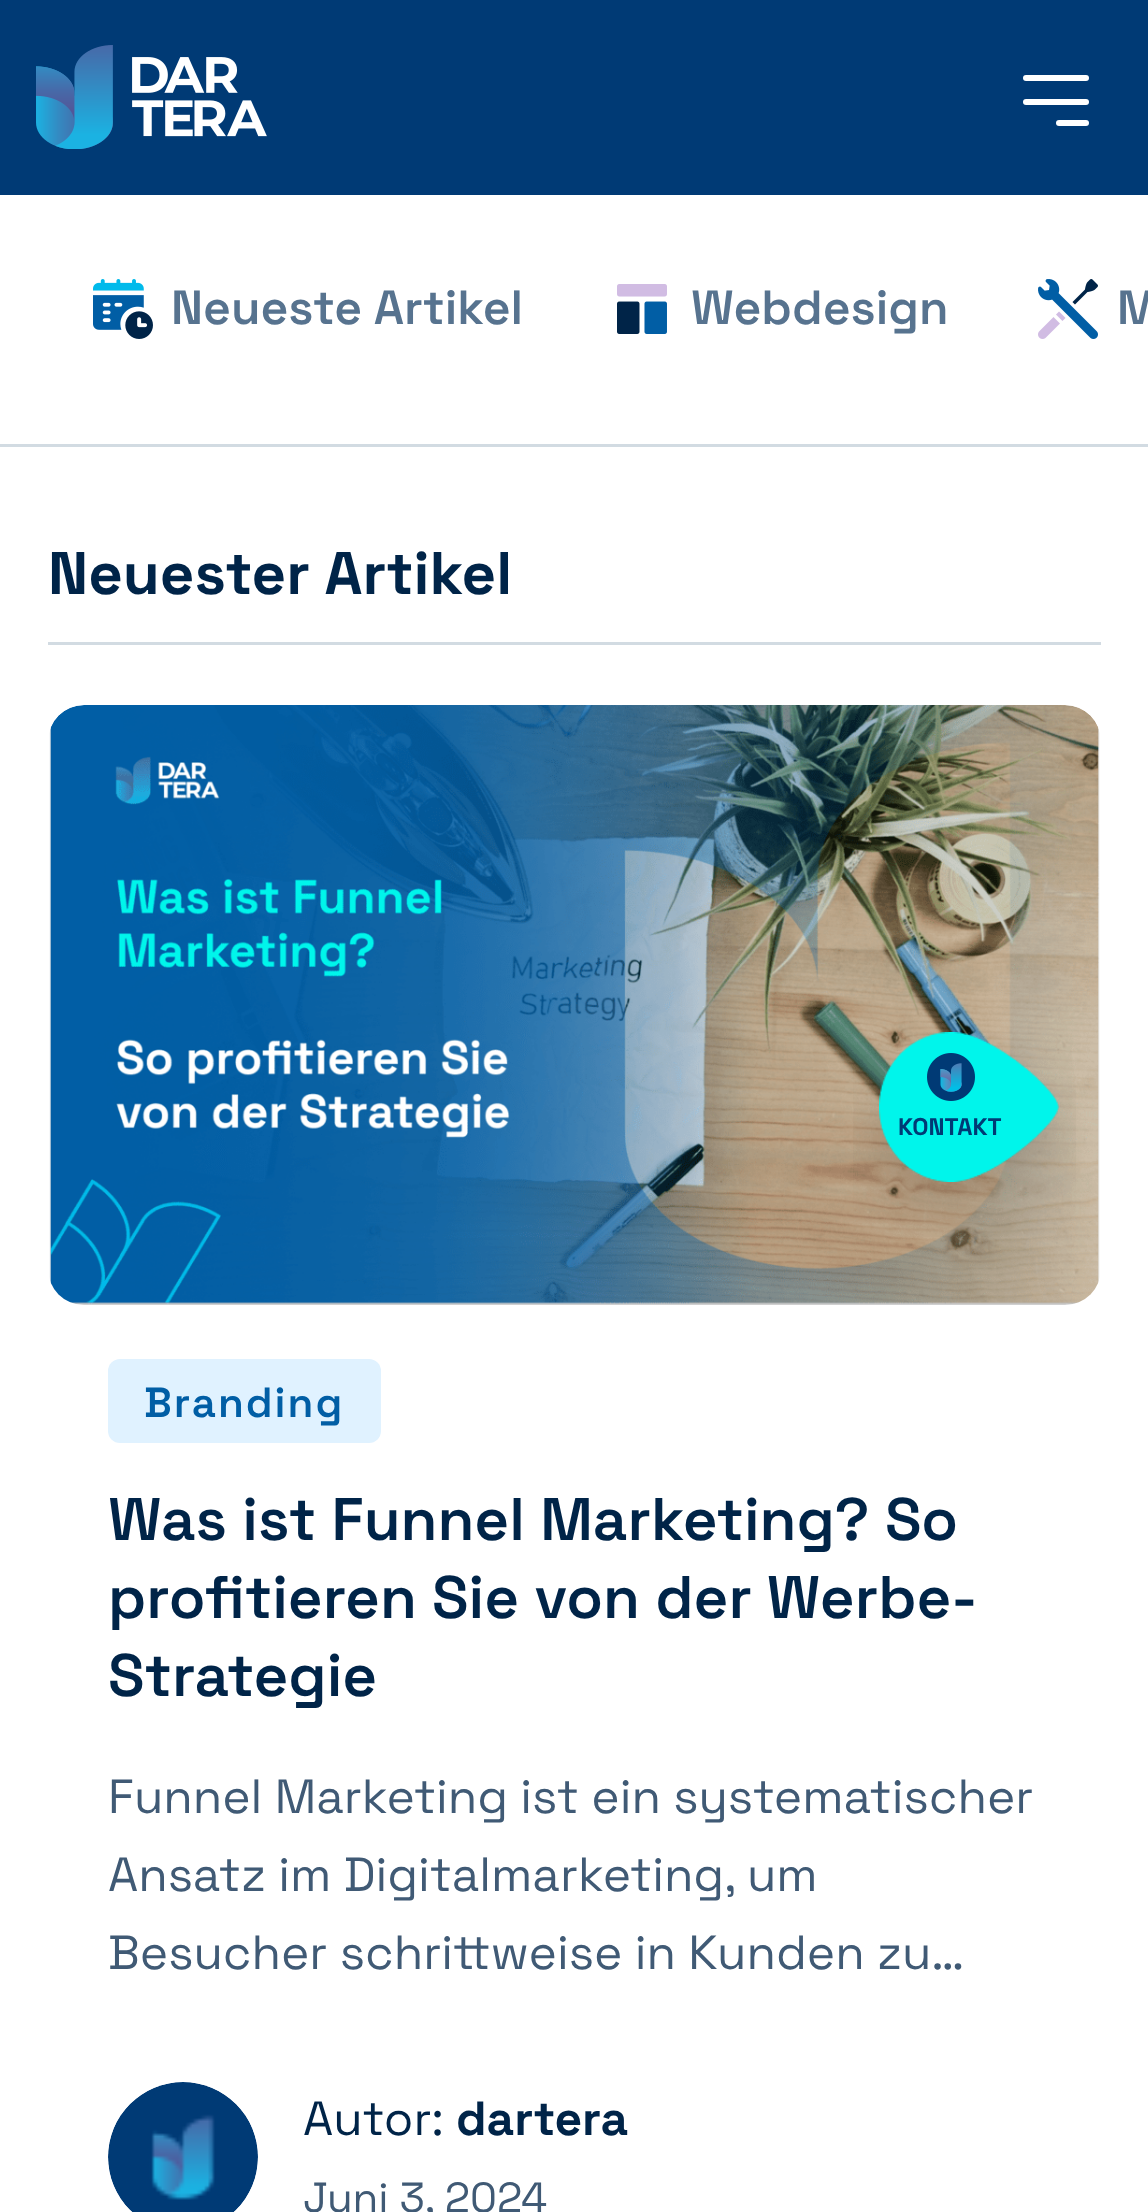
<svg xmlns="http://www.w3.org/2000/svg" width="1148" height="2212">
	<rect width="100%" height="100%" fill="#FFFFFF" />
	<rect x="0" y="0" width="1148" height="195" fill="#003A75" />
	<image x="36" y="45" width="231" height="104" href="assets/img1.png" />
	<rect x="1023" y="75" width="66" height="6" rx="3" fill="#FFFFFF" />
	<rect x="1023" y="99" width="66" height="6" rx="3" fill="#FFFFFF" />
	<rect x="1056" y="120" width="33" height="6" rx="3" fill="#FFFFFF" />
	<rect x="0" y="444" width="1148" height="3" fill="#D2DBE2" />
	<image x="93" y="279" width="60" height="60" href="assets/img2.png" />
	<text x="171" y="324" font-family="Space Grotesk" font-size="48" font-weight="600" fill="#57738F">Neueste Artikel</text>
	<image x="617" y="284" width="50" height="50" href="assets/img3.png" />
	<text x="691" y="324" font-family="Space Grotesk" font-size="48" font-weight="600" fill="#57738F">Webdesign</text>
	<image x="1038" y="279" width="60" height="60" href="assets/img4.png" />
	<text x="1117" y="324" font-family="Space Grotesk" font-size="48" font-weight="600" fill="#57738F">M</text>
	<rect x="48" y="642" width="1053" height="3" fill="#D2DBE2" />
	<text x="48" y="594" font-family="Space Grotesk" font-size="60" font-weight="700" fill="#002448">Neuester Artikel</text>
	<image x="49" y="705" width="1051" height="600" href="assets/img5.png" />
	<rect x="108" y="1359" width="273" height="84" rx="12" fill="#E0F2FF" />
	<text x="144" y="1417" font-family="Space Grotesk" font-size="42" font-weight="600" letter-spacing="2" fill="#015EA5">Branding</text>
	<g font-family="Space Grotesk" font-size="60" font-weight="600" fill="#002448">
		<text x="108" y="1540">Was ist Funnel Marketing? So</text>
		<text x="108" y="1618">profitieren Sie von der Werbe-</text>
		<text x="108" y="1696">Strategie</text>
	</g>
	<g font-family="Space Grotesk" font-size="48" fill="#405A75">
		<text x="108" y="1813">Funnel Marketing ist ein systematischer</text>
		<text x="108" y="1891">Ansatz im Digitalmarketing, um</text>
		<text x="108" y="1969">Besucher schrittweise in Kunden zu…</text>
	</g>
	<image x="108" y="2082" width="150" height="130" href="assets/img6.png" />
	<text x="303" y="2135" font-family="Space Grotesk" font-size="48" fill="#002448">Autor:</text>
	<text x="456" y="2135" font-family="Space Grotesk" font-size="48" font-weight="700" fill="#002448">dartera</text>
	<text x="303" y="2212" font-family="Space Grotesk" font-size="42" fill="#405A75">Juni 3, 2024</text>
	<image x="853" y="1032" width="223" height="205" href="assets/img7.png" />
	<image x="927" y="1053" width="48" height="48" href="assets/img8.png" />
	<text x="898" y="1135" font-family="Space Grotesk" font-size="24" font-weight="700" fill="#003A75">KONTAKT</text>
</svg>
